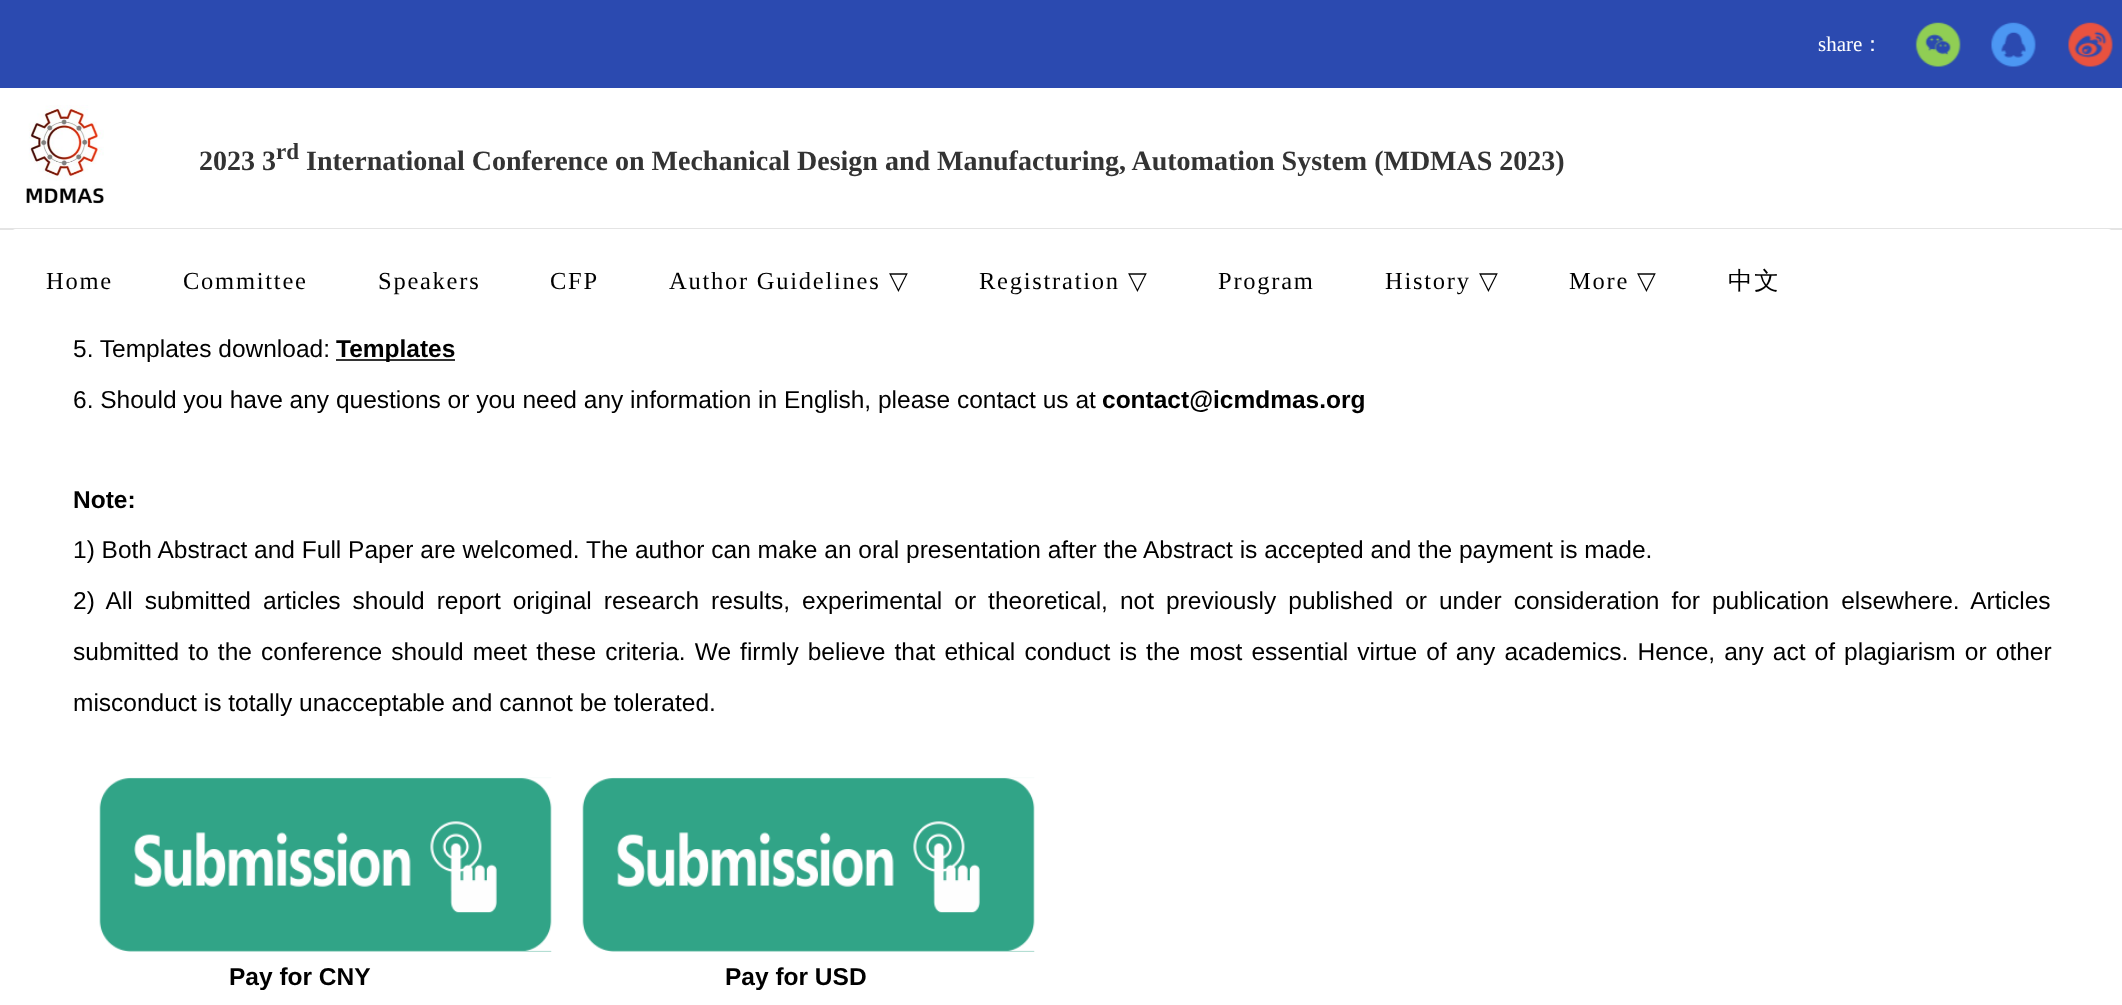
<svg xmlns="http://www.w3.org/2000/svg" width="2122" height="1005">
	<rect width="100%" height="100%" fill="#FFFFFF" />
	<rect x="0" y="0" width="2122" height="88" fill="#2B4AB0" />
	<text x="1818" y="51" font-family="Liberation Serif" font-size="21" fill="#FEFEFE">share</text>
	<text x="1862" y="51" font-family="WenQuanYi Zen Hei" font-size="21" font-weight="500" fill="#FEFEFE">：</text>
	<image x="1915" y="22" width="46" height="45" href="assets/img1.png" />
	<image x="1991" y="22" width="45" height="45" href="assets/img2.png" />
	<image x="2068" y="22" width="45" height="45" href="assets/img3.png" />
	<image x="26" y="105" width="78" height="99" href="assets/img4.png" />
	<text x="199" y="170" font-family="Liberation Serif" font-size="28" font-weight="700" fill="#333333">2023 3</text>
	<text x="276" y="159" font-family="Liberation Serif" font-size="23" font-weight="700" fill="#333333">rd</text>
	<text x="306" y="170" font-family="Liberation Serif" font-size="28" font-weight="700" fill="#333333">International Conference on Mechanical Design and Manufacturing, Automation System (MDMAS 2023)</text>
	<rect x="0" y="228" width="2122" height="2" fill="#E4E4E4" />
	<rect x="12" y="229" width="2100" height="105" rx="4" fill="#FFFFFF" />
	<g font-family="Liberation Serif" font-size="24.5" letter-spacing="1.75" fill="#000000">
		<text x="46" y="289">Home</text>
		<text x="183" y="289">Committee</text>
		<text x="378" y="289">Speakers</text>
		<text x="550" y="289">CFP</text>
		<text x="669" y="289">Author Guidelines</text>
	</g>
	<text x="889" y="289" font-family="DejaVu Sans" font-size="24.5" letter-spacing="1.75" fill="#000000">▽</text>
	<text x="979" y="289" font-family="Liberation Serif" font-size="24.5" letter-spacing="1.75" fill="#000000">Registration</text>
	<text x="1128" y="289" font-family="DejaVu Sans" font-size="24.5" letter-spacing="1.75" fill="#000000">▽</text>
	<g font-family="Liberation Serif" font-size="24.5" letter-spacing="1.75" fill="#000000">
		<text x="1218" y="289">Program</text>
		<text x="1385" y="289">History</text>
	</g>
	<text x="1479" y="289" font-family="DejaVu Sans" font-size="24.5" letter-spacing="1.75" fill="#000000">▽</text>
	<text x="1569" y="289" font-family="Liberation Serif" font-size="24.5" letter-spacing="1.75" fill="#000000">More</text>
	<text x="1637" y="289" font-family="DejaVu Sans" font-size="24.5" letter-spacing="1.75" fill="#000000">▽</text>
	<text x="1728" y="289" font-family="WenQuanYi Zen Hei" font-size="24.5" font-weight="500" letter-spacing="1.75" fill="#000000">中文</text>
	<text x="73" y="357" font-family="Liberation Sans" font-size="24.5" fill="#000000">5. Templates download:</text>
	<rect x="336" y="359" width="119" height="2" fill="#333333" />
	<text x="336" y="357" font-family="Liberation Sans" font-size="24.5" font-weight="700" fill="#000000">Templates</text>
	<text x="73" y="408" font-family="Liberation Sans" font-size="24.5" fill="#000000">6. Should you have any questions or you need any information in English, please contact us at</text>
	<g font-family="Liberation Sans" font-size="24.5" font-weight="700" fill="#000000">
		<text x="1102" y="408">contact@icmdmas.org</text>
		<text x="73" y="508">Note:</text>
	</g>
	<g font-family="Liberation Sans" font-size="24.5" fill="#000000">
		<text x="73" y="558">1) Both Abstract and Full Paper are welcomed. The author can make an oral presentation after the Abstract is accepted and the payment is made.</text>
		<text x="73" y="609" word-spacing="5.2">2) All submitted articles should report original research results, experimental or theoretical, not previously published or under consideration for publication elsewhere. Articles</text>
		<text x="73" y="660" word-spacing="2.3">submitted to the conference should meet these criteria. We firmly believe that ethical conduct is the most essential virtue of any academics. Hence, any act of plagiarism or other</text>
		<text x="73" y="711">misconduct is totally unacceptable and cannot be tolerated.</text>
	</g>
	<image x="99" y="777" width="453" height="175" href="assets/img5.png" />
	<image x="582" y="777" width="453" height="175" href="assets/img6.png" />
	<g font-family="Liberation Sans" font-size="24.5" font-weight="700" fill="#000000">
		<text x="229" y="985">Pay for CNY</text>
		<text x="725" y="985">Pay for USD</text>
	</g>
</svg>
